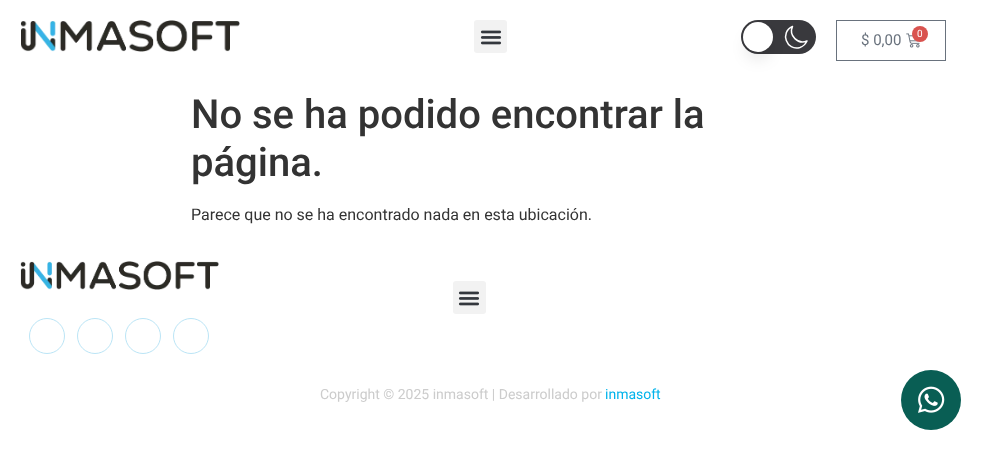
<svg xmlns="http://www.w3.org/2000/svg" width="981" height="450">
	<rect width="100%" height="100%" fill="#FFFFFF" />
	<image x="20" y="20" width="220" height="32" href="assets/img1.png" />
	<rect x="474" y="20" width="33" height="33" rx="3" fill="#F2F2F2" />
	<image x="480" y="30" width="22" height="15" href="assets/img2.png" />
	<rect x="741" y="20" width="75" height="34" rx="17" fill="#39393D" />
	<path d="M807 41C798 45 788.5 35.5 792.5 26.5C779.5 32 786.5 51.5 800 47.5C803 46.5 805.5 44 807 41Z" fill="none" stroke="#FFFFFF" stroke-width="1.5" stroke-linecap="round" stroke-linejoin="round" />
	<rect x="746" y="35" width="24" height="24" rx="12" fill="#000000" fill-opacity="0.1" filter="blur(7.5px)" />
	<circle cx="758" cy="37" r="15" fill="#FFFFFF" />
	<rect x="836.5" y="20.5" width="109" height="40" fill="none" stroke="#69727D" />
	<text x="861" y="45" font-family="Roboto" font-size="15" fill="#69727D">$ 0,00</text>
	<image x="906" y="33" width="14" height="15" href="assets/img3.png" />
	<circle cx="920" cy="34" r="8" fill="#D9534F" />
	<text x="917" y="37" font-family="Roboto" font-size="10" fill="#FFFFFF">0</text>
	<g font-family="Roboto" font-size="40" font-weight="500" fill="#333333">
		<text x="191" y="128">No se ha podido encontrar la</text>
		<text x="191" y="176">página.</text>
	</g>
	<text x="191" y="220" font-family="Roboto" font-size="16" fill="#333333">Parece que no se ha encontrado nada en esta ubicación.</text>
	<image x="20" y="261" width="199" height="29" href="assets/img4.png" />
	<circle cx="47" cy="336" r="17.5" fill="none" stroke="#BBE5F6" />
	<circle cx="95" cy="336" r="17.5" fill="none" stroke="#BBE5F6" />
	<circle cx="143" cy="336" r="17.5" fill="none" stroke="#BBE5F6" />
	<circle cx="191" cy="336" r="17.5" fill="none" stroke="#BBE5F6" />
	<rect x="453" y="281" width="33" height="33" rx="3" fill="#F2F2F2" />
	<image x="458" y="291" width="22" height="15" href="assets/img2.png" />
	<circle cx="931" cy="400" r="30" fill="#095E54" />
	<image x="918" y="386" width="27" height="27" href="assets/img5.png" />
	<text x="320" y="399" font-family="Roboto" font-size="14" fill="#CCCCCC">Copyright © 2025 inmasoft | Desarrollado por</text>
	<text x="605" y="399" font-family="Roboto" font-size="14" fill="#00B3EB">inmasoft</text>
</svg>
